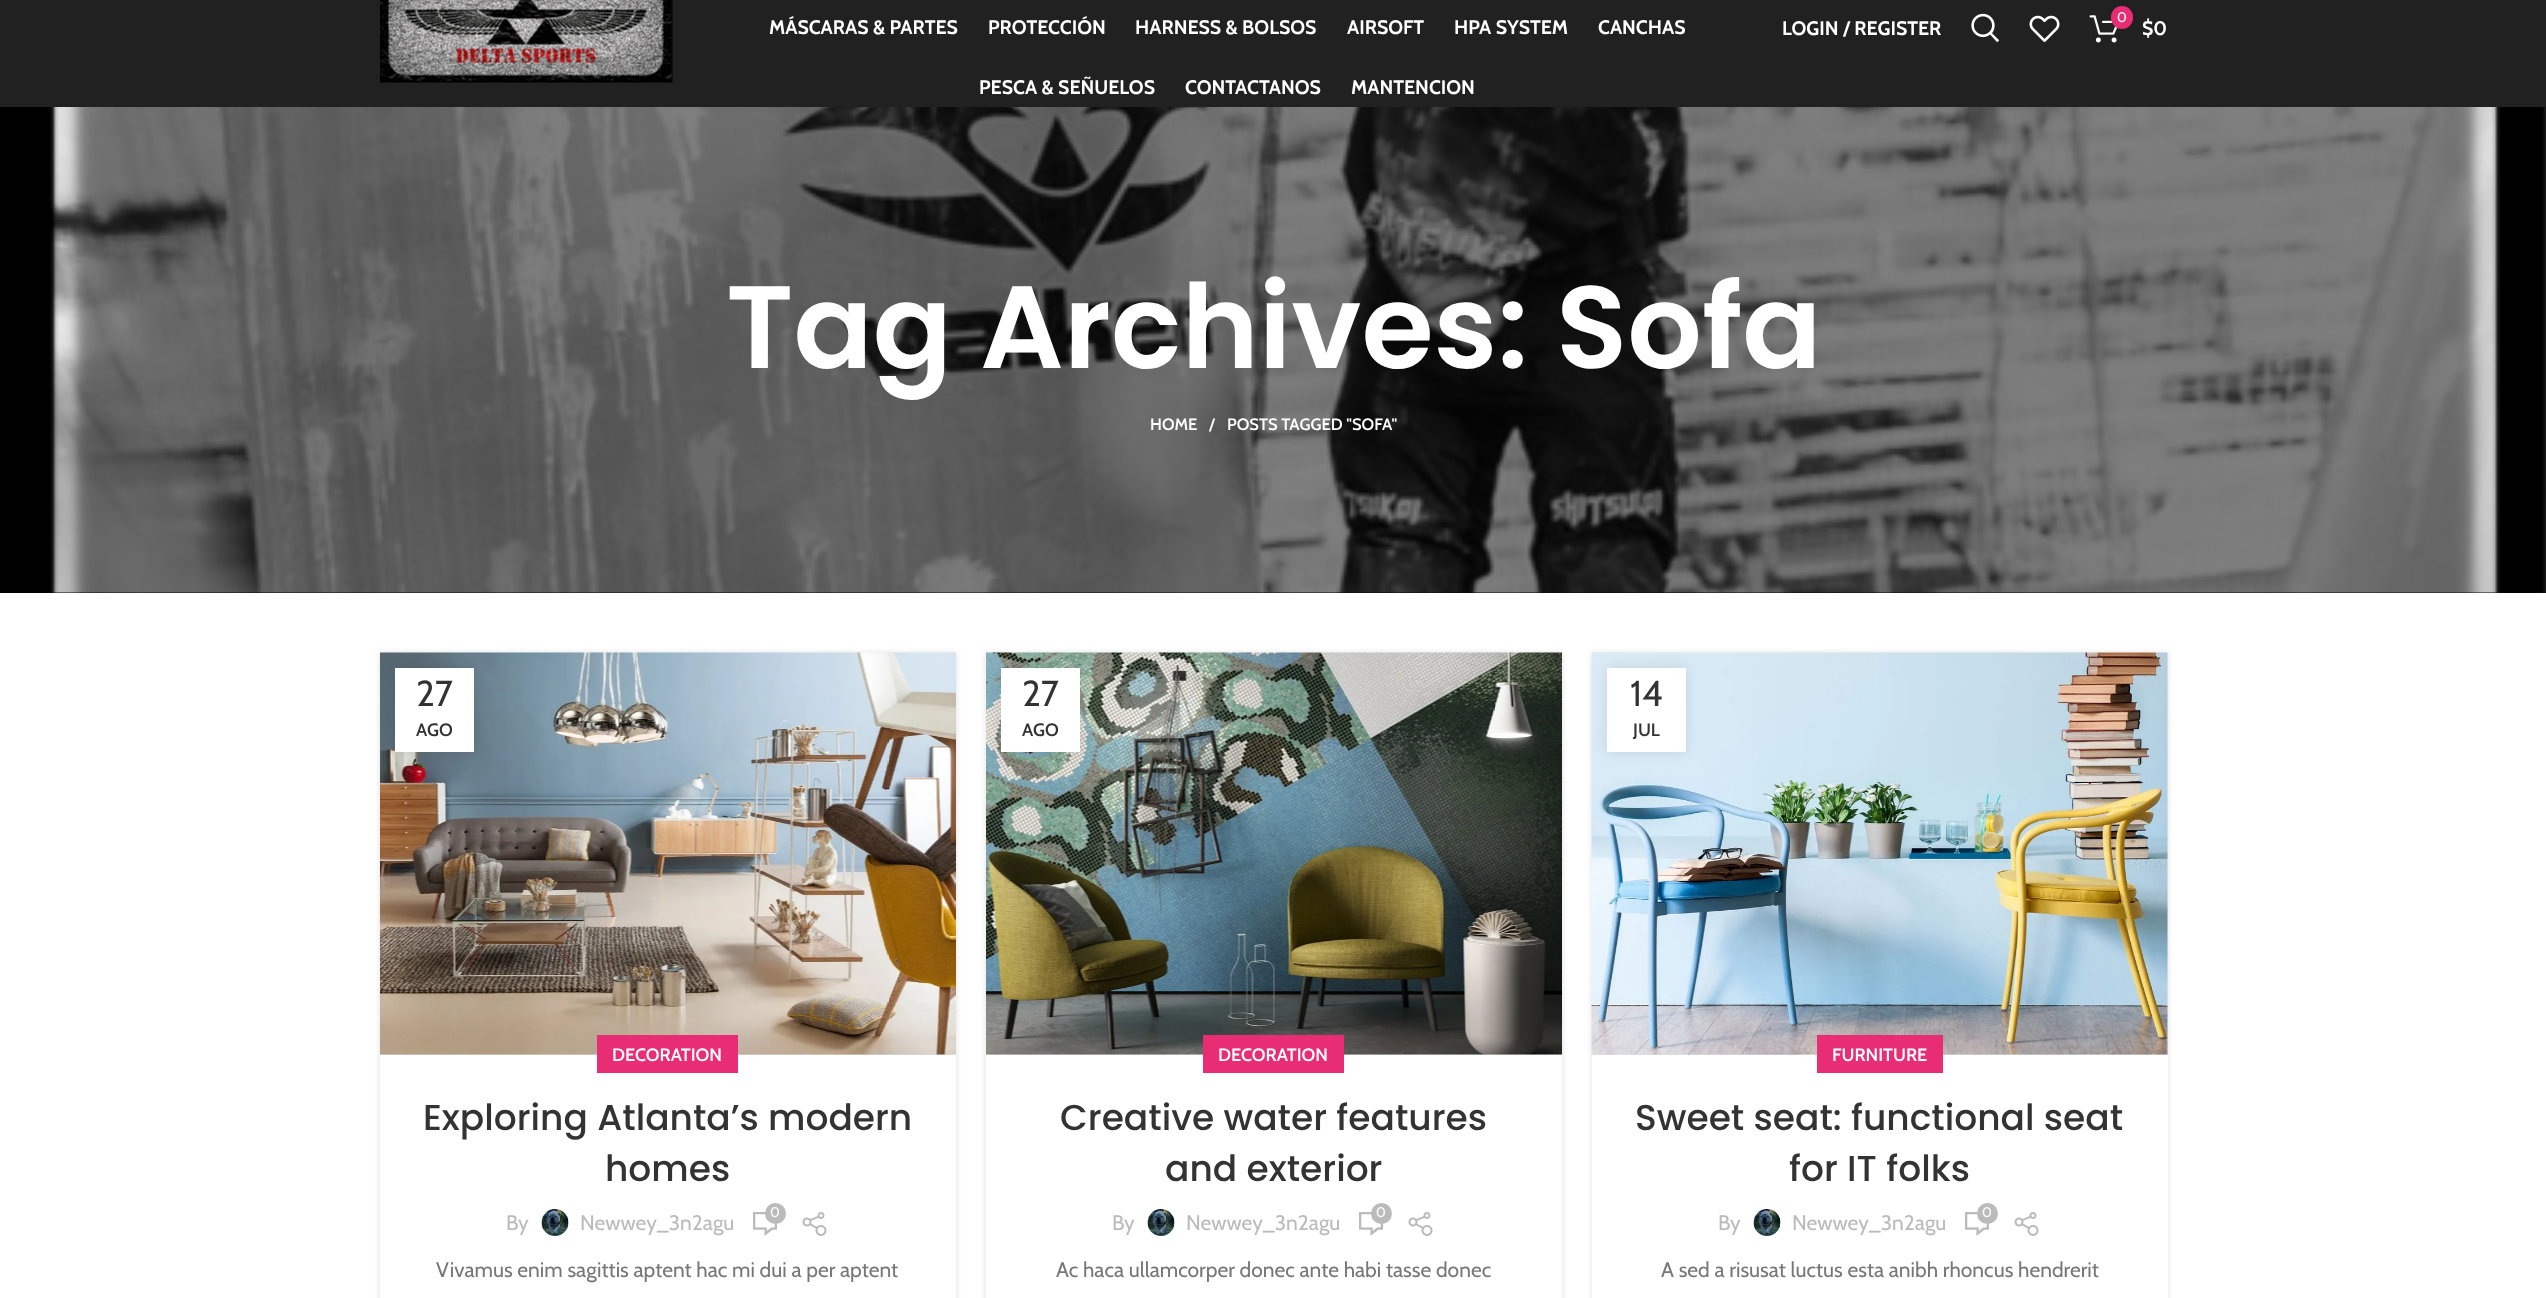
<svg xmlns="http://www.w3.org/2000/svg" width="2546" height="1298">
	<rect width="100%" height="100%" fill="#FFFFFF" />
	<rect x="0" y="0" width="2546" height="107" fill="#212121" />
	<image x="380" y="0" width="293" height="83" href="assets/img1.png" />
	<g font-family="Cabin" font-size="19.5" font-weight="700" fill="#FFFFFF">
		<text x="769" y="34">MÁSCARAS &amp; PARTES</text>
		<text x="988" y="34">PROTECCIÓN</text>
		<text x="1135" y="34">HARNESS &amp; BOLSOS</text>
		<text x="1347" y="34">AIRSOFT</text>
		<text x="1454" y="34">HPA SYSTEM</text>
		<text x="1598" y="34">CANCHAS</text>
		<text x="979" y="94">PESCA &amp; SEÑUELOS</text>
		<text x="1185" y="94">CONTACTANOS</text>
		<text x="1351" y="94">MANTENCION</text>
		<text x="1782" y="35">LOGIN / REGISTER</text>
	</g>
	<image x="1971" y="13" width="29" height="30" href="assets/img2.png" />
	<image x="2029" y="15" width="31" height="27" href="assets/img3.png" />
	<image x="2089" y="15" width="29" height="28" href="assets/img4.png" />
	<rect x="2111" y="6" width="22" height="23" rx="11" fill="#E92D74" />
	<text x="2117" y="22" font-family="Cabin" font-size="14" fill="#FFFFFF">0</text>
	<text x="2142" y="35" font-family="Cabin" font-size="19.5" font-weight="700" fill="#FFFFFF">$0</text>
	<rect x="0" y="592" width="2546" height="1" fill="#0A0A0A" />
	<image x="0" y="107" width="2546" height="486" href="assets/img5.png" />
	<text x="726" y="368" font-family="Poppins" font-size="117" font-weight="600" fill="#FFFFFF">Tag Archives: Sofa</text>
	<g font-family="Cabin" font-size="16.5" font-weight="600" fill="#FFFFFF">
		<text x="1150" y="430">HOME</text>
		<text x="1209" y="430">/</text>
		<text x="1227" y="430">POSTS TAGGED "SOFA"</text>
	</g>
	<rect x="380" y="653" width="576" height="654" fill="#000000" fill-opacity="0.12" filter="blur(3px)" />
	<image x="380" y="652" width="576" height="403" href="assets/img6.png" />
	<rect x="395" y="668" width="79" height="84" fill="#000000" fill-opacity="0.1" filter="blur(7px)" />
	<rect x="395" y="668" width="79" height="84" fill="#FFFFFF" />
	<text x="416" y="706" font-family="Cabin" font-size="36" fill="#333333">27</text>
	<text x="416" y="736" font-family="Cabin" font-size="18" font-weight="600" fill="#333333">AGO</text>
	<rect x="380" y="1055" width="576" height="243" fill="#FFFFFF" />
	<rect x="597" y="1035" width="141" height="38" fill="#E92D74" />
	<text x="612" y="1061" font-family="Cabin" font-size="18" font-weight="600" fill="#FFFFFF">DECORATION</text>
	<g font-family="Poppins" font-size="36" font-weight="500" fill="#333333">
		<text x="423" y="1130">Exploring Atlanta’s modern</text>
		<text x="605" y="1181">homes</text>
	</g>
	<image x="753" y="1212" width="24" height="24" href="assets/img7.png" />
	<circle cx="775.5" cy="1213.5" r="10.5" fill="#BBBBBB" />
	<text x="770" y="1217" font-family="Cabin" font-size="14" fill="#FFFFFF">0</text>
	<text x="506" y="1230" font-family="Cabin" font-size="21" fill="#BBBBBB">By</text>
	<image x="541" y="1209" width="28" height="27" href="assets/img8.png" />
	<text x="580" y="1230" font-family="Cabin" font-size="21" fill="#BBBBBB">Newwey_3n2agu</text>
	<image x="802" y="1212" width="25" height="24" href="assets/img9.png" />
	<text x="436" y="1277" font-family="Cabin" font-size="21" fill="#777777">Vivamus enim sagittis aptent hac mi dui a per aptent</text>
	<rect x="986" y="653" width="576" height="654" fill="#000000" fill-opacity="0.12" filter="blur(3px)" />
	<image x="986" y="652" width="576" height="403" href="assets/img10.png" />
	<rect x="1001" y="668" width="79" height="84" fill="#000000" fill-opacity="0.1" filter="blur(7px)" />
	<rect x="1001" y="668" width="79" height="84" fill="#FFFFFF" />
	<text x="1022" y="706" font-family="Cabin" font-size="36" fill="#333333">27</text>
	<text x="1022" y="736" font-family="Cabin" font-size="18" font-weight="600" fill="#333333">AGO</text>
	<rect x="986" y="1055" width="576" height="243" fill="#FFFFFF" />
	<rect x="1203" y="1035" width="141" height="38" fill="#E92D74" />
	<text x="1218" y="1061" font-family="Cabin" font-size="18" font-weight="600" fill="#FFFFFF">DECORATION</text>
	<g font-family="Poppins" font-size="36" font-weight="500" fill="#333333">
		<text x="1060" y="1130">Creative water features</text>
		<text x="1165" y="1181">and exterior</text>
	</g>
	<image x="1359" y="1212" width="24" height="24" href="assets/img7.png" />
	<circle cx="1381.5" cy="1213.5" r="10.5" fill="#BBBBBB" />
	<text x="1376" y="1217" font-family="Cabin" font-size="14" fill="#FFFFFF">0</text>
	<text x="1112" y="1230" font-family="Cabin" font-size="21" fill="#BBBBBB">By</text>
	<image x="1147" y="1209" width="28" height="27" href="assets/img8.png" />
	<text x="1186" y="1230" font-family="Cabin" font-size="21" fill="#BBBBBB">Newwey_3n2agu</text>
	<image x="1408" y="1212" width="25" height="24" href="assets/img9.png" />
	<text x="1056" y="1277" font-family="Cabin" font-size="21" fill="#777777">Ac haca ullamcorper donec ante habi tasse donec</text>
	<rect x="1592" y="653" width="576" height="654" fill="#000000" fill-opacity="0.12" filter="blur(3px)" />
	<image x="1591" y="652" width="577" height="403" href="assets/img11.png" />
	<rect x="1607" y="668" width="79" height="84" fill="#000000" fill-opacity="0.1" filter="blur(7px)" />
	<rect x="1607" y="668" width="79" height="84" fill="#FFFFFF" />
	<text x="1630" y="706" font-family="Cabin" font-size="36" fill="#333333">14</text>
	<text x="1633" y="736" font-family="Cabin" font-size="18" font-weight="600" fill="#333333">JUL</text>
	<rect x="1592" y="1055" width="576" height="243" fill="#FFFFFF" />
	<rect x="1817" y="1035" width="126" height="38" fill="#E92D74" />
	<text x="1832" y="1061" font-family="Cabin" font-size="18" font-weight="600" fill="#FFFFFF">FURNITURE</text>
	<g font-family="Poppins" font-size="36" font-weight="500" fill="#333333">
		<text x="1635" y="1130">Sweet seat: functional seat</text>
		<text x="1789" y="1181">for IT folks</text>
	</g>
	<image x="1965" y="1212" width="24" height="24" href="assets/img7.png" />
	<circle cx="1987.5" cy="1213.5" r="10.5" fill="#BBBBBB" />
	<text x="1982" y="1217" font-family="Cabin" font-size="14" fill="#FFFFFF">0</text>
	<text x="1718" y="1230" font-family="Cabin" font-size="21" fill="#BBBBBB">By</text>
	<image x="1753" y="1209" width="28" height="27" href="assets/img12.png" />
	<text x="1792" y="1230" font-family="Cabin" font-size="21" fill="#BBBBBB">Newwey_3n2agu</text>
	<image x="2014" y="1212" width="25" height="24" href="assets/img9.png" />
	<text x="1661" y="1277" font-family="Cabin" font-size="21" fill="#777777">A sed a risusat luctus esta anibh rhoncus hendrerit</text>
</svg>
